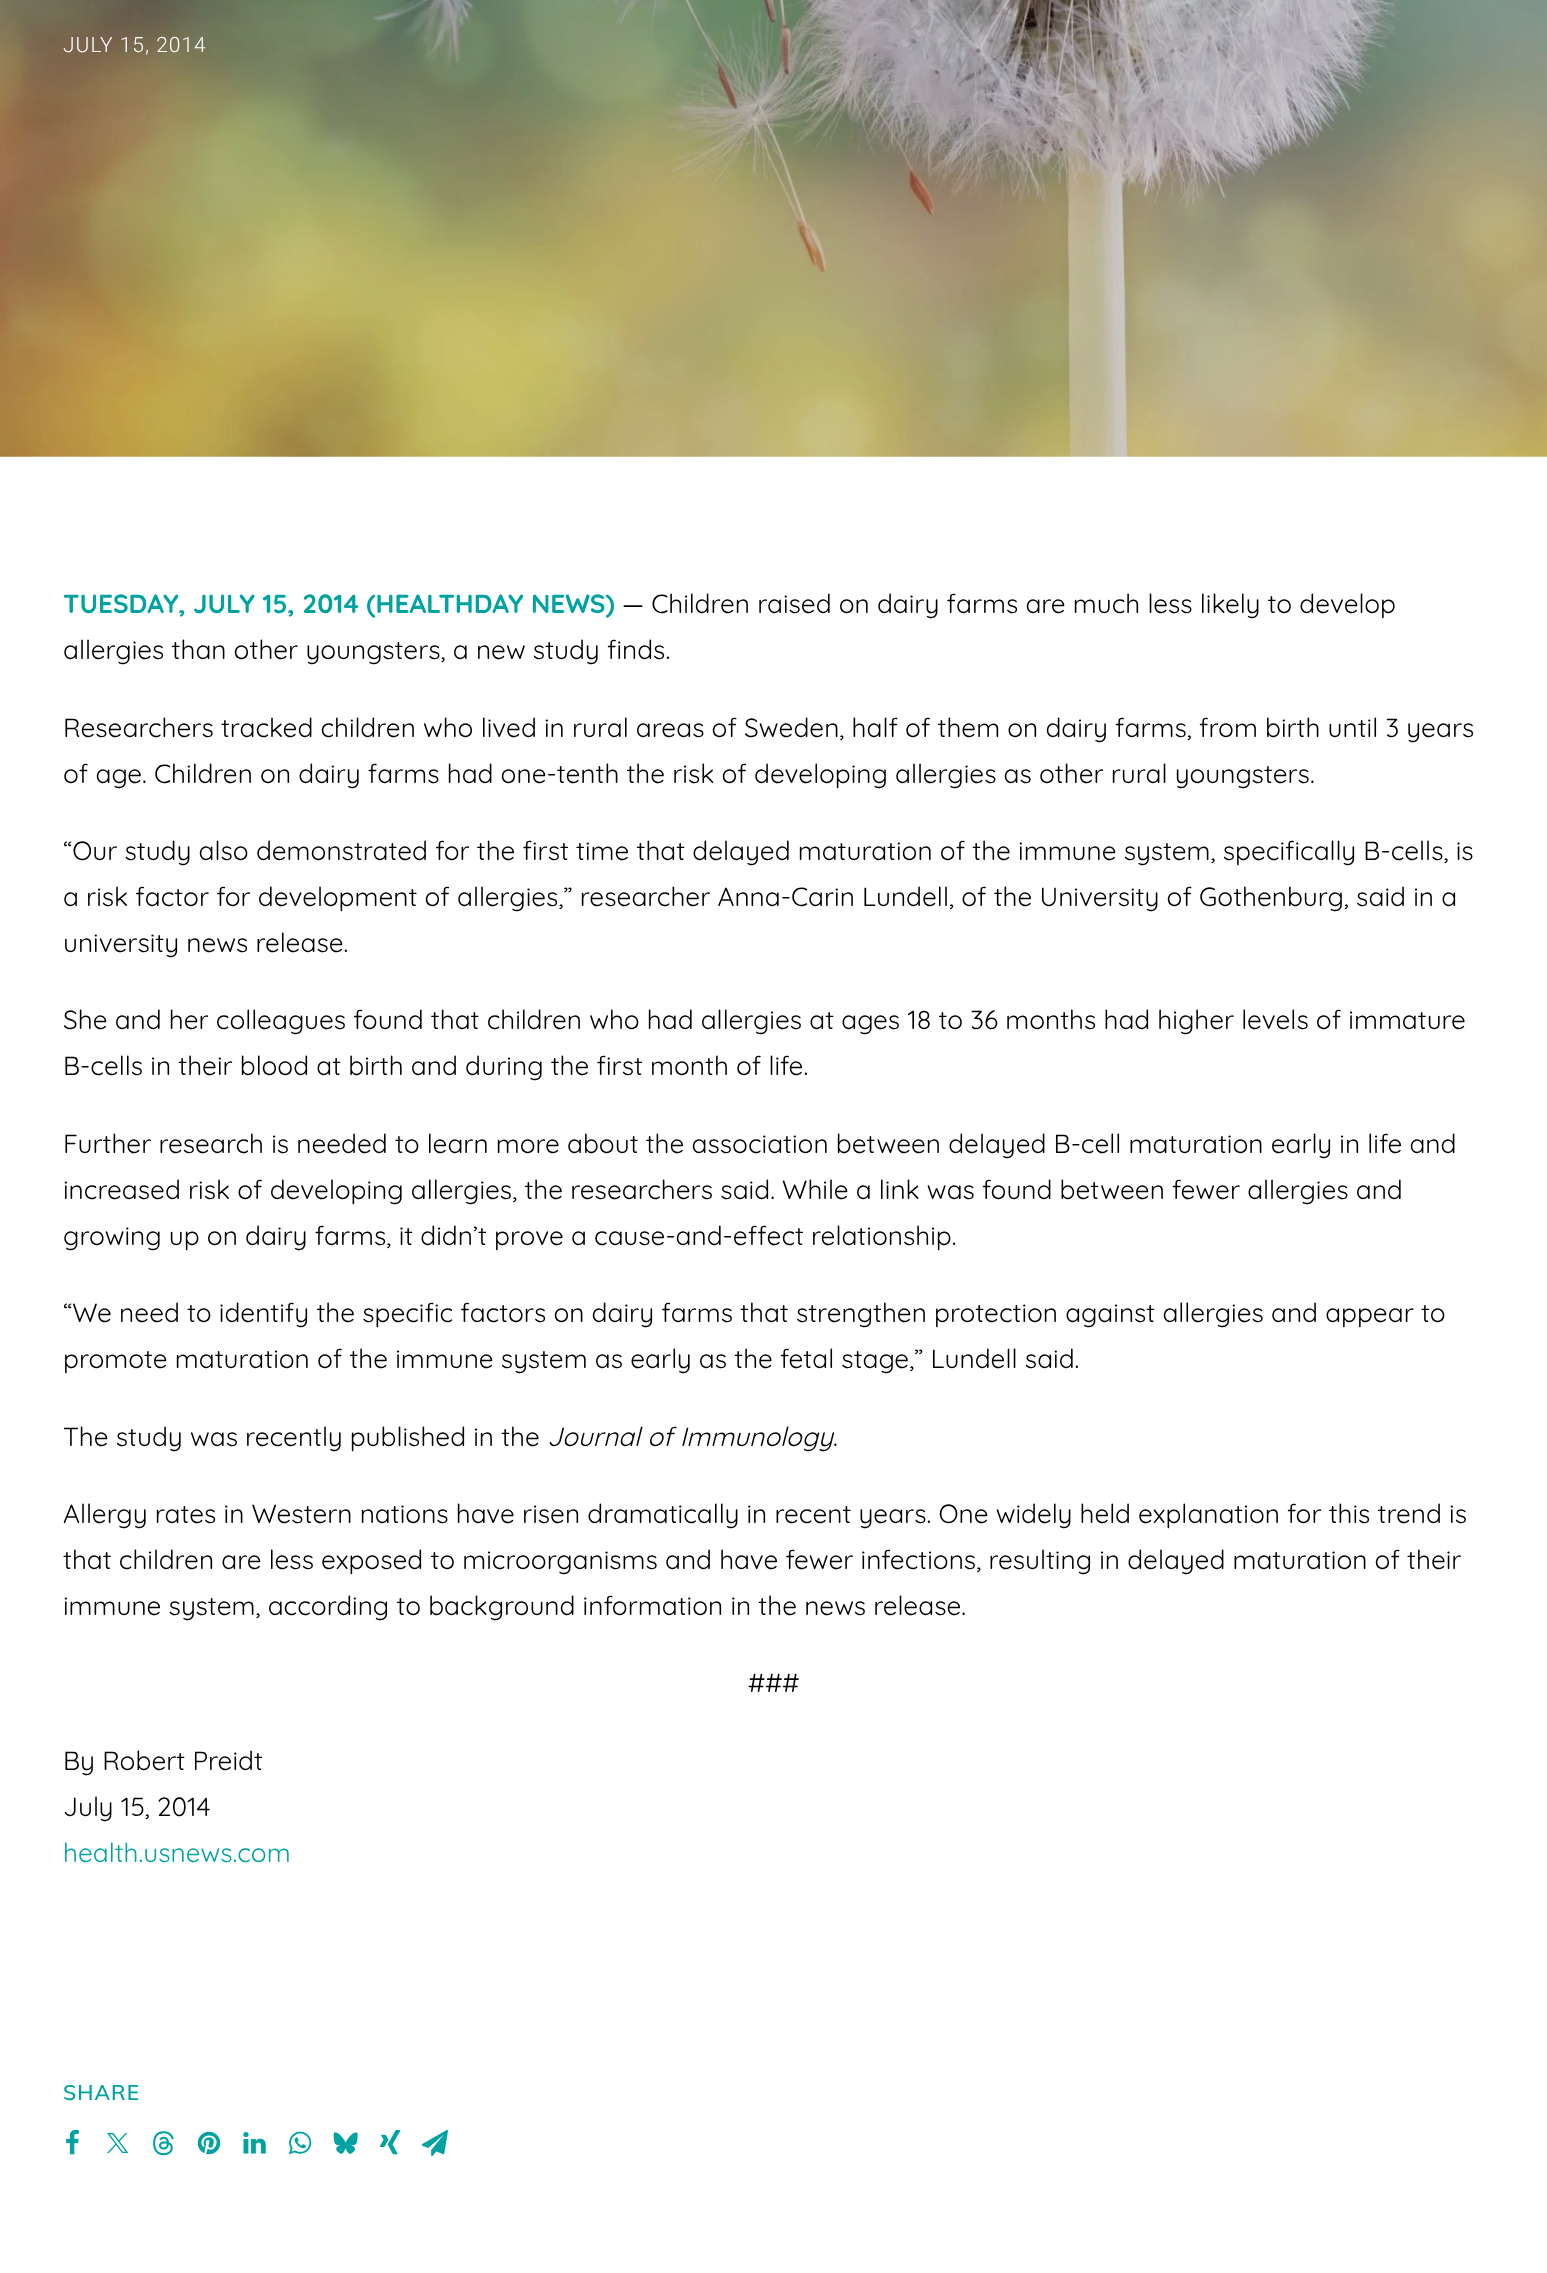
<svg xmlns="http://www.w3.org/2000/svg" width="1547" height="2273">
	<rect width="100%" height="100%" fill="#FFFFFF" />
	<image x="0" y="0" width="1547" height="457" href="assets/img1.png" />
	<text x="63" y="52" font-family="Roboto" font-size="21" font-weight="300" letter-spacing="1" fill="#FFFFFF">JULY 15, 2014</text>
	<text x="63" y="613" font-family="Quicksand" font-size="26.25" font-weight="700" fill="#00A3A2">TUESDAY, JULY 15, 2014 (HEALTHDAY NEWS)</text>
	<g font-family="Quicksand" font-size="26.25" fill="#000000">
		<text x="622" y="613">— Children raised on dairy farms are much less likely to develop</text>
		<text x="63" y="659">allergies than other youngsters, a new study finds.</text>
		<text x="63" y="737">Researchers tracked children who lived in rural areas of Sweden, half of them on dairy farms, from birth until 3 years</text>
		<text x="63" y="783">of age. Children on dairy farms had one-tenth the risk of developing allergies as other rural youngsters.</text>
		<text x="63" y="860">“Our study also demonstrated for the first time that delayed maturation of the immune system, specifically B-cells, is</text>
		<text x="63" y="906">a risk factor for development of allergies,” researcher Anna-Carin Lundell, of the University of Gothenburg, said in a</text>
		<text x="63" y="952">university news release.</text>
		<text x="63" y="1029">She and her colleagues found that children who had allergies at ages 18 to 36 months had higher levels of immature</text>
		<text x="63" y="1075">B-cells in their blood at birth and during the first month of life.</text>
		<text x="63" y="1153">Further research is needed to learn more about the association between delayed B-cell maturation early in life and</text>
		<text x="63" y="1199">increased risk of developing allergies, the researchers said. While a link was found between fewer allergies and</text>
		<text x="63" y="1245">growing up on dairy farms, it didn’t prove a cause-and-effect relationship.</text>
		<text x="63" y="1322">“We need to identify the specific factors on dairy farms that strengthen protection against allergies and appear to</text>
		<text x="63" y="1368">promote maturation of the immune system as early as the fetal stage,” Lundell said.</text>
		<text x="63" y="1446">The study was recently published in the</text>
	</g>
	<text x="547" y="1446" font-family="Quicksand" font-size="26.25" font-style="italic" fill="#000000">Journal of Immunology</text>
	<g font-family="Quicksand" font-size="26.25" fill="#000000">
		<text x="833" y="1446">.</text>
		<text x="63" y="1523">Allergy rates in Western nations have risen dramatically in recent years. One widely held explanation for this trend is</text>
		<text x="63" y="1569">that children are less exposed to microorganisms and have fewer infections, resulting in delayed maturation of their</text>
		<text x="63" y="1615">immune system, according to background information in the news release.</text>
		<text x="748" y="1692">###</text>
		<text x="63" y="1770">By Robert Preidt</text>
		<text x="63" y="1816">July 15, 2014</text>
	</g>
	<text x="63" y="1862" font-family="Quicksand" font-size="26.25" fill="#00A3A2">health.usnews.com</text>
	<text x="63" y="2100" font-family="Muli" font-size="21" font-weight="600" letter-spacing="1" fill="#00A3A2">SHARE</text>
	<image x="66" y="2129" width="13" height="26" href="assets/img2.png" />
	<image x="107" y="2132" width="22" height="22" href="assets/img3.png" />
	<image x="153" y="2131" width="21" height="25" href="assets/img4.png" />
	<image x="197" y="2131" width="24" height="24" href="assets/img5.png" />
	<image x="243" y="2132" width="23" height="22" href="assets/img6.png" />
	<image x="288" y="2131" width="24" height="24" href="assets/img7.png" />
	<image x="333" y="2132" width="25" height="22" href="assets/img8.png" />
	<image x="379" y="2130" width="22" height="25" href="assets/img9.png" />
	<image x="421" y="2129" width="27" height="28" href="assets/img10.png" />
</svg>
